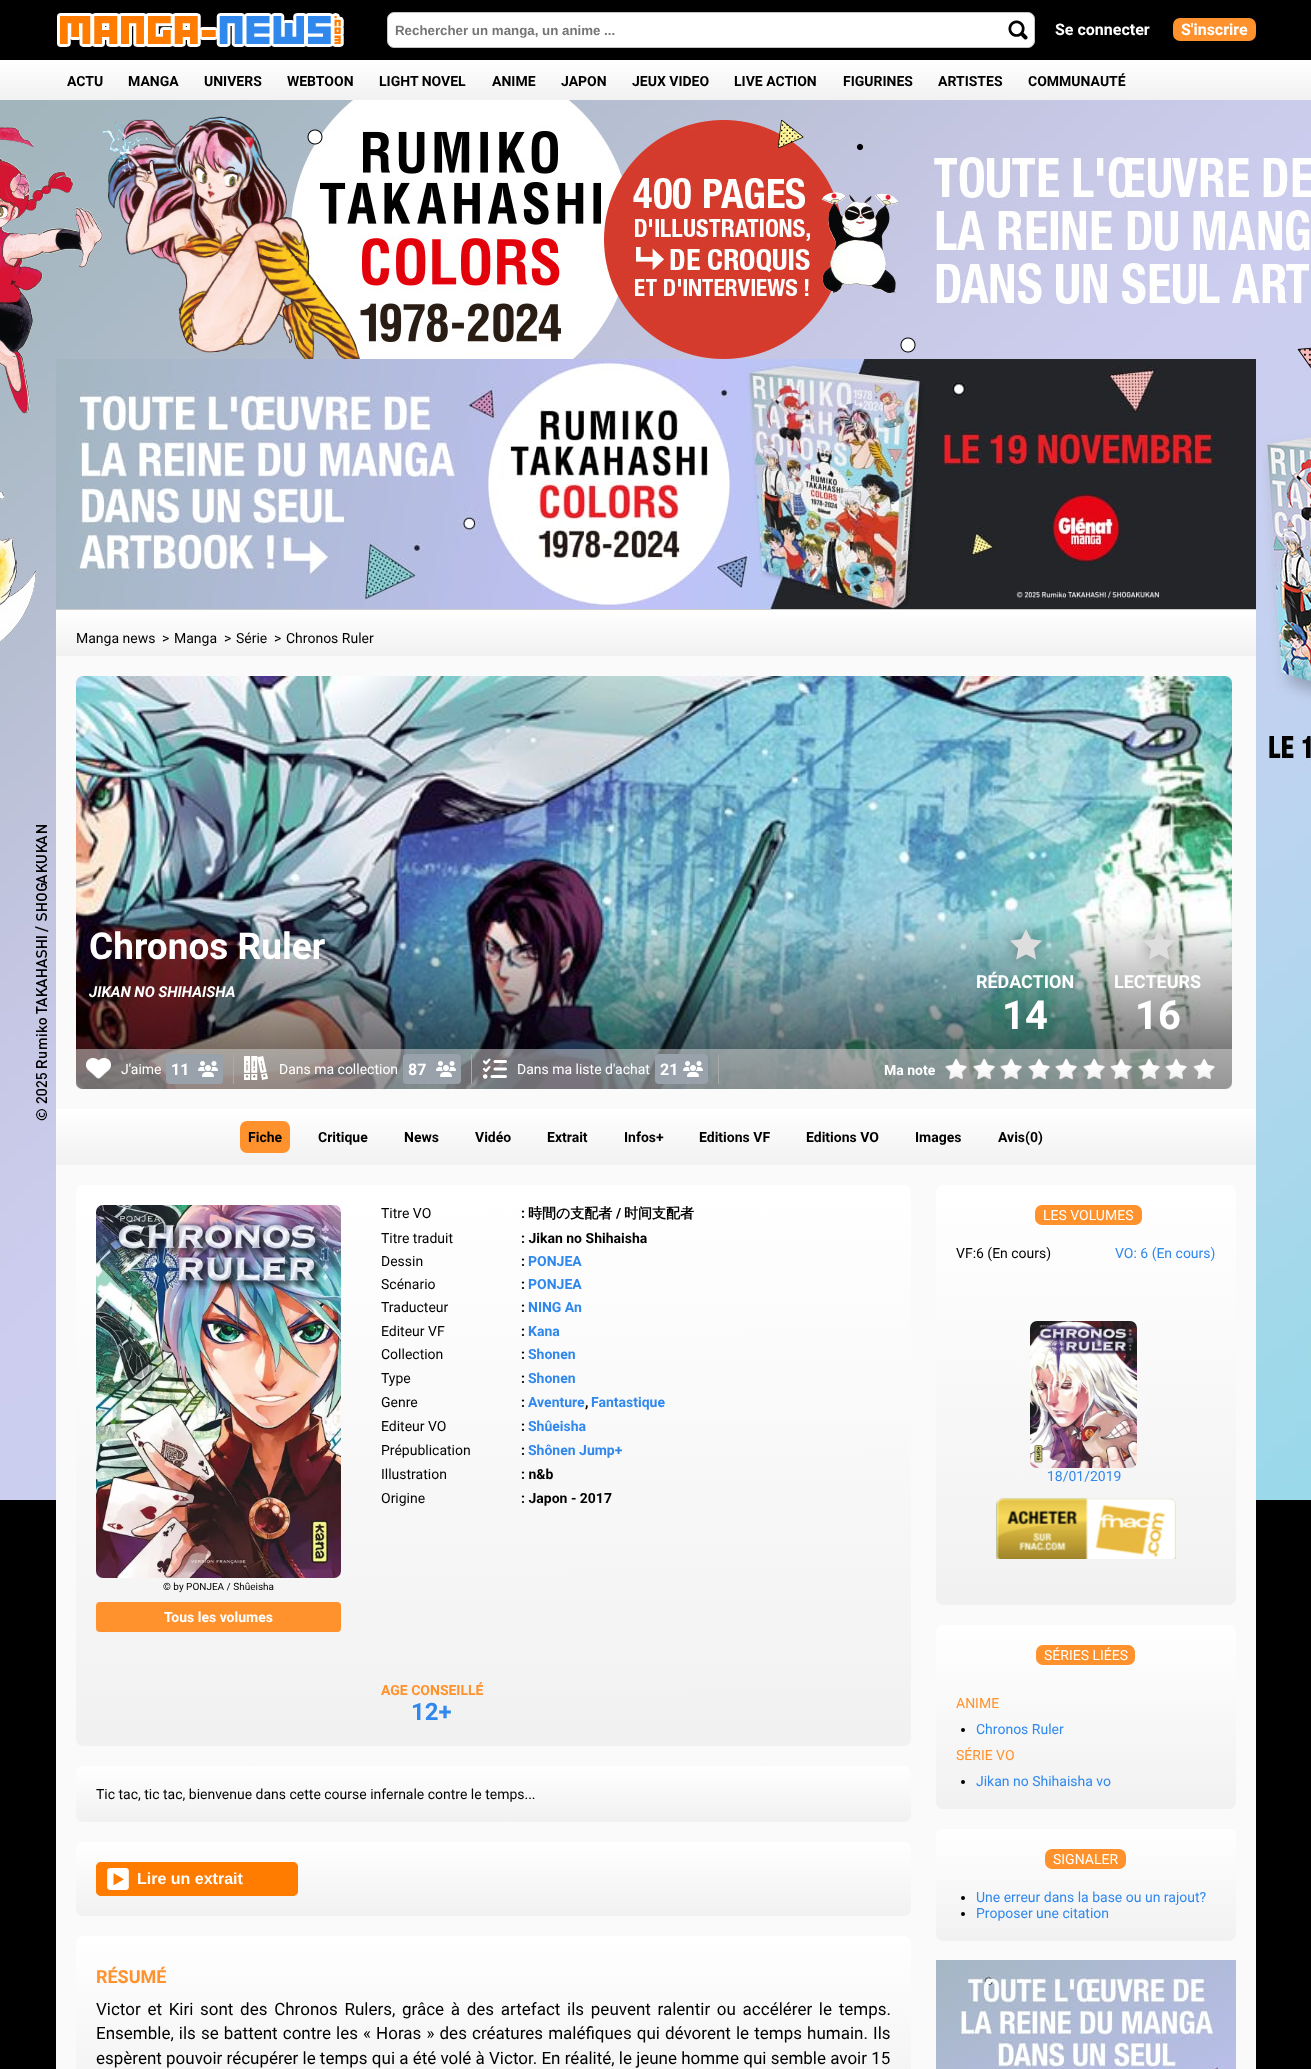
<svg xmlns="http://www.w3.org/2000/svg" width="1311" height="2069">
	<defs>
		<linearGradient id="g1" gradientUnits="userSpaceOnUse" x1="656" y1="60" x2="656" y2="100"><stop offset="0" stop-color="#FFFFFF" /><stop offset="1" stop-color="#F1F1F1" /></linearGradient>
		<linearGradient id="g2" gradientUnits="userSpaceOnUse" x1="656" y1="610" x2="656" y2="656"><stop offset="0" stop-color="#FFFFFF" /><stop offset="1" stop-color="#F1F1F1" /></linearGradient>
		<linearGradient id="g3" gradientUnits="userSpaceOnUse" x1="654" y1="920" x2="654" y2="1089"><stop offset="0" stop-color="#000000" stop-opacity="0" /><stop offset="1" stop-color="#000000" stop-opacity="0.68" /></linearGradient>
		<linearGradient id="g4" gradientUnits="userSpaceOnUse" x1="656" y1="1109" x2="656" y2="1165"><stop offset="0" stop-color="#FFFFFF" /><stop offset="1" stop-color="#F1F1F1" /></linearGradient>
		<linearGradient id="g5" gradientUnits="userSpaceOnUse" x1="493" y1="1185" x2="494" y2="1746"><stop offset="0" stop-color="#FFFFFF" /><stop offset="1" stop-color="#F1F1F1" /></linearGradient>
		<linearGradient id="g6" gradientUnits="userSpaceOnUse" x1="494" y1="1766" x2="494" y2="1822"><stop offset="0" stop-color="#FFFFFF" /><stop offset="1" stop-color="#F1F1F1" /></linearGradient>
		<linearGradient id="g7" gradientUnits="userSpaceOnUse" x1="494" y1="1842" x2="494" y2="1916"><stop offset="0" stop-color="#FFFFFF" /><stop offset="1" stop-color="#F1F1F1" /></linearGradient>
		<linearGradient id="g8" gradientUnits="userSpaceOnUse" x1="494" y1="1936" x2="494" y2="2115"><stop offset="0" stop-color="#FFFFFF" /><stop offset="1" stop-color="#F1F1F1" /></linearGradient>
		<linearGradient id="g9" gradientUnits="userSpaceOnUse" x1="1086" y1="1185" x2="1086" y2="1605"><stop offset="0" stop-color="#FFFFFF" /><stop offset="1" stop-color="#F1F1F1" /></linearGradient>
		<linearGradient id="g10" gradientUnits="userSpaceOnUse" x1="1086" y1="1625" x2="1086" y2="1809"><stop offset="0" stop-color="#FFFFFF" /><stop offset="1" stop-color="#F1F1F1" /></linearGradient>
		<linearGradient id="g11" gradientUnits="userSpaceOnUse" x1="1086" y1="1829" x2="1086" y2="1941"><stop offset="0" stop-color="#FFFFFF" /><stop offset="1" stop-color="#F1F1F1" /></linearGradient>
	</defs>
	<rect width="100%" height="100%" fill="#000000" />
	<image x="57" y="13" width="287" height="34" href="assets/img1.png" />
	<rect x="387.5" y="12.5" width="647" height="35" rx="6.5" fill="#FFFFFF" stroke="#C4C4C4" />
	<text x="395" y="35" font-family="Liberation Sans" font-size="13.3" font-weight="700" fill="#757575">Rechercher un manga, un anime ...</text>
	<image x="1008" y="20" width="20" height="20" href="assets/img2.png" />
	<text x="1055" y="35" font-family="Roboto" font-size="16" font-weight="700" fill="#FFFFFF">Se connecter</text>
	<rect x="1173" y="18" width="83" height="23" rx="7" fill="#FF922C" />
	<text x="1181" y="35" font-family="Roboto" font-size="16" font-weight="700" fill="#FFFFFF">S'inscrire</text>
	<rect x="0" y="60" width="1311" height="40" fill="url(#g1)" />
	<g font-family="Roboto" font-size="14" font-weight="700" fill="#000000">
		<text x="67" y="86">ACTU</text>
		<text x="128" y="86">MANGA</text>
		<text x="204" y="86">UNIVERS</text>
		<text x="287" y="86">WEBTOON</text>
		<text x="379" y="86">LIGHT NOVEL</text>
		<text x="492" y="86">ANIME</text>
		<text x="561" y="86">JAPON</text>
		<text x="632" y="86">JEUX VIDEO</text>
		<text x="734" y="86">LIVE ACTION</text>
		<text x="843" y="86">FIGURINES</text>
		<text x="938" y="86">ARTISTES</text>
		<text x="1028" y="86">COMMUNAUTÉ</text>
	</g>
	<image x="0" y="100" width="1311" height="1400" href="assets/img3.png" />
	<rect x="56" y="656" width="1200" height="1413" fill="#FAFAFA" />
	<rect x="56" y="609" width="1200" height="1" fill="#CCCCCC" />
	<image x="56" y="359" width="1200" height="250" href="assets/img4.png" />
	<rect x="56" y="610" width="1200" height="46" fill="url(#g2)" />
	<g font-family="Roboto" font-size="14" fill="#000000">
		<text x="76" y="643">Manga news</text>
		<text x="162" y="643">&gt;</text>
		<text x="174" y="643">Manga</text>
		<text x="224" y="643">&gt;</text>
		<text x="236" y="643">Série</text>
		<text x="274" y="643">&gt;</text>
		<text x="286" y="643">Chronos Ruler</text>
	</g>
	<image x="76" y="676" width="1156" height="413" href="assets/img5.png" />
	<rect x="76" y="920" width="1156" height="169" rx="7" fill="url(#g3)" />
	<text x="89" y="959" font-family="Roboto" font-size="37" font-weight="700" fill="#FFFFFF">Chronos Ruler</text>
	<text x="89" y="997" font-family="Roboto" font-size="15" font-weight="700" font-style="italic" fill="#FFFFFF">JIKAN NO SHIHAISHA</text>
	<path d="M76 1049H1232V1085C1232 1087 1230 1089 1228 1089H80C78 1089 76 1087 76 1085Z" fill="#D9D9D9" fill-opacity="0.5" />
	<image x="1004" y="923" width="45" height="44" href="assets/img6.png" />
	<text x="976" y="988" font-family="Roboto" font-size="18" font-weight="700" fill="#FFFFFF">RÉDACTION</text>
	<text x="1002" y="1029" font-family="Roboto" font-size="40" font-weight="700" fill="#FFFFFF">14</text>
	<image x="1136" y="923" width="44" height="45" href="assets/img7.png" />
	<text x="1114" y="988" font-family="Roboto" font-size="18" font-weight="700" fill="#FFFFFF">LECTEURS</text>
	<text x="1135" y="1029" font-family="Roboto" font-size="40" font-weight="700" fill="#FFFFFF">16</text>
	<rect x="233" y="1054" width="1" height="30" fill="#AAAAAA" />
	<image x="86" y="1058" width="25" height="21" href="assets/img8.png" />
	<text x="121" y="1074" font-family="Roboto" font-size="14" fill="#FFFFFF">J'aime</text>
	<rect x="166" y="1054" width="57" height="30" rx="4" fill="#99A2AB" />
	<text x="171" y="1075" font-family="Roboto" font-size="16" font-weight="700" fill="#FFFFFF">11</text>
	<image x="198" y="1061" width="20" height="16" href="assets/img9.png" />
	<rect x="471" y="1054" width="1" height="30" fill="#AAAAAA" />
	<image x="244" y="1056" width="24" height="24" href="assets/img10.png" />
	<text x="279" y="1074" font-family="Roboto" font-size="14" fill="#FFFFFF">Dans ma collection</text>
	<rect x="403" y="1054" width="58" height="30" rx="4" fill="#99A2AB" />
	<text x="408" y="1075" font-family="Roboto" font-size="16" font-weight="700" fill="#FFFFFF">87</text>
	<image x="436" y="1061" width="20" height="16" href="assets/img9.png" />
	<rect x="718" y="1054" width="1" height="30" fill="#AAAAAA" />
	<image x="483" y="1058" width="24" height="21" href="assets/img11.png" />
	<text x="517" y="1074" font-family="Roboto" font-size="14" fill="#FFFFFF">Dans ma liste d'achat</text>
	<rect x="655" y="1054" width="53" height="30" rx="4" fill="#99A2AB" />
	<text x="660" y="1075" font-family="Roboto" font-size="16" font-weight="700" fill="#FFFFFF">21</text>
	<image x="683" y="1061" width="20" height="16" href="assets/img9.png" />
	<text x="884" y="1075" font-family="Roboto" font-size="14" font-weight="700" fill="#FFFFFF">Ma note</text>
	<image x="945" y="1058" width="22" height="22" href="assets/img12.png" />
	<image x="973" y="1058" width="23" height="22" href="assets/img13.png" />
	<image x="1000" y="1058" width="23" height="22" href="assets/img14.png" />
	<image x="1028" y="1058" width="23" height="22" href="assets/img15.png" />
	<image x="1055" y="1058" width="23" height="22" href="assets/img16.png" />
	<image x="1083" y="1058" width="22" height="22" href="assets/img17.png" />
	<image x="1110" y="1058" width="23" height="22" href="assets/img18.png" />
	<image x="1138" y="1058" width="22" height="22" href="assets/img19.png" />
	<image x="1165" y="1058" width="22" height="22" href="assets/img20.png" />
	<image x="1193" y="1058" width="22" height="22" href="assets/img21.png" />
	<rect x="56" y="1109" width="1200" height="56" fill="url(#g4)" />
	<rect x="240" y="1121" width="50" height="32" rx="7" fill="#FF922C" />
	<g font-family="Roboto" font-size="14" font-weight="700" fill="#000000">
		<text x="248" y="1142">Fiche</text>
		<text x="318" y="1142">Critique</text>
		<text x="404" y="1142">News</text>
		<text x="475" y="1142">Vidéo</text>
		<text x="547" y="1142">Extrait</text>
		<text x="624" y="1142">Infos+</text>
		<text x="699" y="1142">Editions VF</text>
		<text x="806" y="1142">Editions VO</text>
		<text x="915" y="1142">Images</text>
		<text x="998" y="1142">Avis(0)</text>
	</g>
	<rect x="76" y="1185" width="835" height="561" rx="7" fill="url(#g5)" />
	<text x="381" y="1218" font-family="Roboto" font-size="14" fill="#000000">Titre VO</text>
	<text x="521" y="1218" font-family="Roboto" font-size="14" font-weight="700" fill="#000000">:</text>
	<text x="528" y="1218" font-family="WenQuanYi Zen Hei" font-size="14" font-weight="700" fill="#000000">時間の支配者</text>
	<text x="616" y="1218" font-family="Roboto" font-size="14" font-weight="700" fill="#000000">/</text>
	<text x="624" y="1218" font-family="WenQuanYi Zen Hei" font-size="14" font-weight="700" fill="#000000">时间支配者</text>
	<text x="381" y="1243" font-family="Roboto" font-size="14" fill="#000000">Titre traduit</text>
	<text x="521" y="1243" font-family="Roboto" font-size="14" font-weight="700" fill="#000000">: Jikan no Shihaisha</text>
	<text x="381" y="1266" font-family="Roboto" font-size="14" fill="#000000">Dessin</text>
	<text x="521" y="1266" font-family="Roboto" font-size="14" font-weight="700" fill="#000000">:</text>
	<text x="528" y="1266" font-family="Roboto" font-size="14" font-weight="700" fill="#3088ED">PONJEA</text>
	<text x="381" y="1289" font-family="Roboto" font-size="14" fill="#000000">Scénario</text>
	<text x="521" y="1289" font-family="Roboto" font-size="14" font-weight="700" fill="#000000">:</text>
	<text x="528" y="1289" font-family="Roboto" font-size="14" font-weight="700" fill="#3088ED">PONJEA</text>
	<text x="381" y="1312" font-family="Roboto" font-size="14" fill="#000000">Traducteur</text>
	<text x="521" y="1312" font-family="Roboto" font-size="14" font-weight="700" fill="#000000">:</text>
	<text x="528" y="1312" font-family="Roboto" font-size="14" font-weight="700" fill="#3088ED">NING An</text>
	<text x="381" y="1336" font-family="Roboto" font-size="14" fill="#000000">Editeur VF</text>
	<text x="521" y="1336" font-family="Roboto" font-size="14" font-weight="700" fill="#000000">:</text>
	<text x="528" y="1336" font-family="Roboto" font-size="14" font-weight="700" fill="#3088ED">Kana</text>
	<text x="381" y="1359" font-family="Roboto" font-size="14" fill="#000000">Collection</text>
	<text x="521" y="1359" font-family="Roboto" font-size="14" font-weight="700" fill="#000000">:</text>
	<text x="528" y="1359" font-family="Roboto" font-size="14" font-weight="700" fill="#3088ED">Shonen</text>
	<text x="381" y="1383" font-family="Roboto" font-size="14" fill="#000000">Type</text>
	<text x="521" y="1383" font-family="Roboto" font-size="14" font-weight="700" fill="#000000">:</text>
	<text x="528" y="1383" font-family="Roboto" font-size="14" font-weight="700" fill="#3088ED">Shonen</text>
	<text x="381" y="1407" font-family="Roboto" font-size="14" fill="#000000">Genre</text>
	<text x="521" y="1407" font-family="Roboto" font-size="14" font-weight="700" fill="#000000">:</text>
	<text x="528" y="1407" font-family="Roboto" font-size="14" font-weight="700" fill="#3088ED">Aventure</text>
	<text x="585" y="1407" font-family="Roboto" font-size="14" font-weight="700" fill="#000000">,</text>
	<text x="591" y="1407" font-family="Roboto" font-size="14" font-weight="700" fill="#3088ED">Fantastique</text>
	<text x="381" y="1431" font-family="Roboto" font-size="14" fill="#000000">Editeur VO</text>
	<text x="521" y="1431" font-family="Roboto" font-size="14" font-weight="700" fill="#000000">:</text>
	<text x="528" y="1431" font-family="Roboto" font-size="14" font-weight="700" fill="#3088ED">Shûeisha</text>
	<text x="381" y="1455" font-family="Roboto" font-size="14" fill="#000000">Prépublication</text>
	<text x="521" y="1455" font-family="Roboto" font-size="14" font-weight="700" fill="#000000">:</text>
	<text x="528" y="1455" font-family="Roboto" font-size="14" font-weight="700" fill="#3088ED">Shônen Jump+</text>
	<text x="381" y="1479" font-family="Roboto" font-size="14" fill="#000000">Illustration</text>
	<text x="521" y="1479" font-family="Roboto" font-size="14" font-weight="700" fill="#000000">: n&amp;b</text>
	<text x="381" y="1503" font-family="Roboto" font-size="14" fill="#000000">Origine</text>
	<text x="521" y="1503" font-family="Roboto" font-size="14" font-weight="700" fill="#000000">: Japon - 2017</text>
	<image x="96" y="1205" width="245" height="373" href="assets/img22.png" />
	<text x="163" y="1590" font-family="Roboto" font-size="10" fill="#000000">© by PONJEA / Shûeisha</text>
	<rect x="96" y="1602" width="245" height="30" rx="4" fill="#FF922C" />
	<text x="164" y="1622" font-family="Roboto" font-size="14" font-weight="700" fill="#FFFFFF">Tous les volumes</text>
	<text x="381" y="1695" font-family="Roboto" font-size="14" font-weight="700" fill="#FF922C">AGE CONSEILLÉ</text>
	<text x="411" y="1720" font-family="Roboto" font-size="24" font-weight="700" fill="#3088ED">12+</text>
	<rect x="76" y="1766" width="835" height="56" rx="7" fill="url(#g6)" />
	<text x="96" y="1799" font-family="Roboto" font-size="14" fill="#000000">Tic tac, tic tac, bienvenue dans cette course infernale contre le temps...</text>
	<rect x="76" y="1842" width="835" height="74" rx="7" fill="url(#g7)" />
	<rect x="96" y="1862" width="202" height="34" rx="5" fill="#FF7C00" />
	<image x="107" y="1868" width="22" height="22" href="assets/img23.png" />
	<rect x="96.5" y="1862.5" width="201" height="33" rx="4.5" fill="none" stroke="#FF7E00" />
	<text x="137" y="1884" font-family="Liberation Sans" font-size="16" font-weight="700" fill="#FFFFFF">Lire un extrait</text>
	<rect x="76" y="1936" width="835" height="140" rx="7" fill="url(#g8)" />
	<text x="96" y="1983" font-family="Roboto" font-size="18" font-weight="700" fill="#FF922C">RÉSUMÉ</text>
	<g font-family="Roboto" font-size="17" fill="#000000">
		<text x="96" y="2015" word-spacing="2.5">Victor et Kiri sont des Chronos Rulers, grâce à des artefact ils peuvent ralentir ou accélérer le temps.</text>
		<text x="96" y="2039" word-spacing="0.9">Ensemble, ils se battent contre les « Horas » des créatures maléfiques qui dévorent le temps humain. Ils</text>
		<text x="96" y="2064">espèrent pouvoir récupérer le temps qui a été volé à Victor. En réalité, le jeune homme qui semble avoir 15</text>
	</g>
	<rect x="936" y="1185" width="300" height="420" rx="7" fill="url(#g9)" />
	<rect x="1035" y="1205" width="107" height="20" rx="7" fill="#FF922C" />
	<text x="1043" y="1220" font-family="Roboto" font-size="14" fill="#FFFFFF">LES VOLUMES</text>
	<text x="956" y="1258" font-family="Roboto" font-size="14" fill="#000000">VF:6 (En cours)</text>
	<text x="1115" y="1258" font-family="Roboto" font-size="14" fill="#3088ED">VO: 6 (En cours)</text>
	<image x="1030" y="1321" width="107" height="147" href="assets/img24.png" />
	<text x="1047" y="1481" font-family="Roboto" font-size="14" fill="#3088ED">18/01/2019</text>
	<image x="996" y="1498" width="180" height="61" href="assets/img25.png" />
	<rect x="936" y="1625" width="300" height="184" rx="7" fill="url(#g10)" />
	<rect x="1036" y="1645" width="99" height="20" rx="7" fill="#FF922C" />
	<text x="1044" y="1660" font-family="Roboto" font-size="14" fill="#FFFFFF">SÉRIES LIÉES</text>
	<text x="956" y="1708" font-family="Roboto" font-size="14" fill="#FF922C">ANIME</text>
	<circle cx="963" cy="1730" r="2" fill="#000000" />
	<text x="976" y="1734" font-family="Roboto" font-size="14" fill="#3088ED">Chronos Ruler</text>
	<text x="956" y="1760" font-family="Roboto" font-size="14" fill="#FF922C">SÉRIE VO</text>
	<circle cx="963" cy="1782" r="2" fill="#000000" />
	<text x="976" y="1786" font-family="Roboto" font-size="14" fill="#3088ED">Jikan no Shihaisha vo</text>
	<rect x="936" y="1829" width="300" height="112" rx="7" fill="url(#g11)" />
	<rect x="1045" y="1849" width="81" height="20" rx="7" fill="#FF922C" />
	<text x="1053" y="1864" font-family="Roboto" font-size="14" fill="#FFFFFF">SIGNALER</text>
	<circle cx="963" cy="1898" r="2" fill="#000000" />
	<text x="976" y="1902" font-family="Roboto" font-size="14" fill="#3088ED">Une erreur dans la base ou un rajout?</text>
	<circle cx="963" cy="1914" r="2" fill="#000000" />
	<text x="976" y="1918" font-family="Roboto" font-size="14" fill="#3088ED">Proposer une citation</text>
	<image x="936" y="1960" width="300" height="109" href="assets/img26.png" />
</svg>
